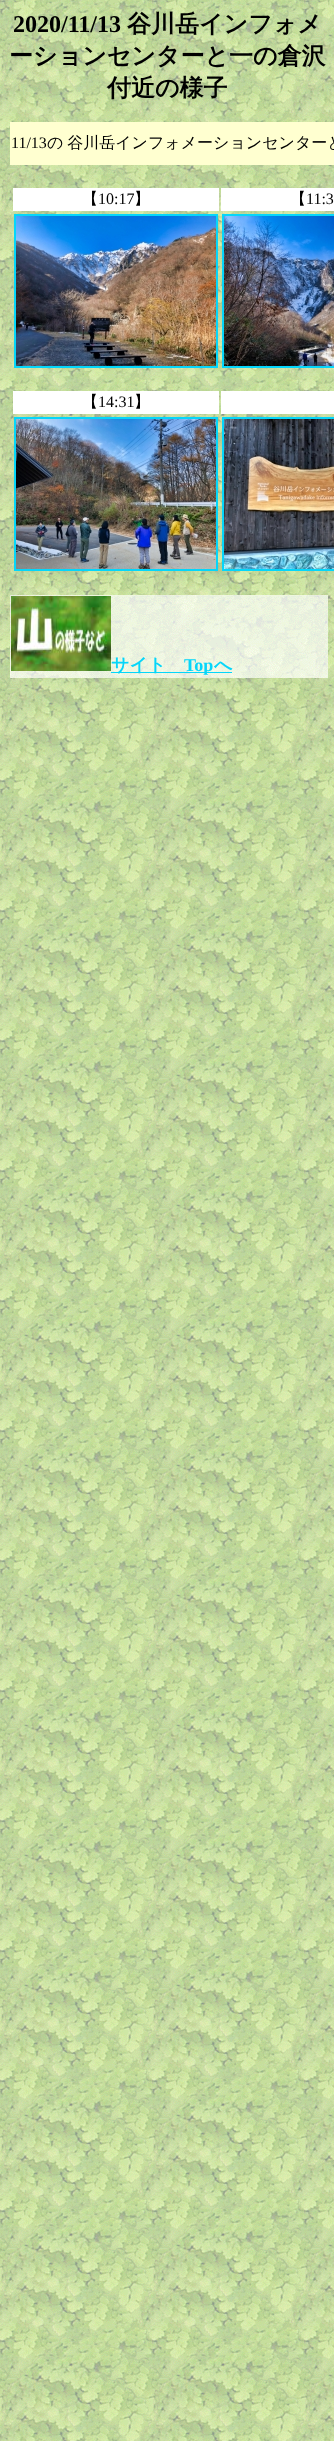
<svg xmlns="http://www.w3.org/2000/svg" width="334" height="2441">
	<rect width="100%" height="100%" fill="#FFFFFF" />
	<image x="0" y="0" width="334" height="2441" href="assets/img1.png" />
	<text x="13" y="32" font-family="Liberation Serif" font-size="24" font-weight="700" fill="#000000">2020/11/13</text>
	<g font-family="WenQuanYi Zen Hei" font-size="24" font-weight="700" fill="#000000">
		<text x="127" y="32">谷川岳インフォメ</text>
		<text x="9" y="64">ーションセンターと一の倉沢</text>
		<text x="107" y="96">付近の様子</text>
	</g>
	<rect x="10" y="122" width="324" height="43" fill="#FFFFD0" />
	<text x="11" y="148" font-family="Liberation Serif" font-size="16" fill="#000000">11/13</text>
	<text x="47" y="148" word-spacing="-1" font-family="WenQuanYi Zen Hei" font-size="16" font-weight="500" fill="#000000">の 谷川岳インフォメーションセンターと</text>
	<rect x="13" y="188" width="206" height="23" fill="#FFFFFF" />
	<text x="82" y="204" font-family="WenQuanYi Zen Hei" font-size="16" font-weight="500" fill="#000000">【</text>
	<text x="98" y="204" font-family="Liberation Serif" font-size="16" fill="#000000">10:17</text>
	<text x="134" y="204" font-family="WenQuanYi Zen Hei" font-size="16" font-weight="500" fill="#000000">】</text>
	<rect x="221" y="188" width="113" height="23" fill="#FFFFFF" />
	<text x="290" y="204" font-family="WenQuanYi Zen Hei" font-size="16" font-weight="500" fill="#000000">【</text>
	<text x="306" y="204" font-family="Liberation Serif" font-size="16" fill="#000000">11:3</text>
	<rect x="15" y="215" width="202" height="152" fill="none" stroke="#05D6FA" stroke-width="2" />
	<image x="16" y="216" width="200" height="150" href="assets/img2.png" />
	<rect x="223" y="215" width="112" height="152" fill="none" stroke="#05D6FA" stroke-width="2" />
	<image x="224" y="216" width="110" height="150" href="assets/img3.png" />
	<rect x="13" y="391" width="206" height="23" fill="#FFFFFF" />
	<text x="82" y="407" font-family="WenQuanYi Zen Hei" font-size="16" font-weight="500" fill="#000000">【</text>
	<text x="98" y="407" font-family="Liberation Serif" font-size="16" fill="#000000">14:31</text>
	<text x="134" y="407" font-family="WenQuanYi Zen Hei" font-size="16" font-weight="500" fill="#000000">】</text>
	<rect x="221" y="391" width="113" height="23" fill="#FFFFFF" />
	<rect x="15" y="418" width="202" height="152" fill="none" stroke="#05D6FA" stroke-width="2" />
	<image x="16" y="419" width="200" height="150" href="assets/img4.png" />
	<rect x="223" y="418" width="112" height="152" fill="none" stroke="#05D6FA" stroke-width="2" />
	<image x="224" y="419" width="110" height="150" href="assets/img5.png" />
	<image x="10" y="595" width="318" height="83" href="assets/img6.png" />
	<image x="11" y="596" width="100" height="75" href="assets/img7.png" />
	<rect x="111" y="672" width="121" height="1" fill="#05D6FA" />
	<text x="111" y="671" font-family="WenQuanYi Zen Hei" font-size="18" font-weight="700" fill="#05D6FA">サイト</text>
	<text x="184" y="671" font-family="Liberation Serif" font-size="18" font-weight="700" fill="#05D6FA">Top</text>
	<text x="214" y="671" font-family="WenQuanYi Zen Hei" font-size="18" font-weight="700" fill="#05D6FA">へ</text>
</svg>
